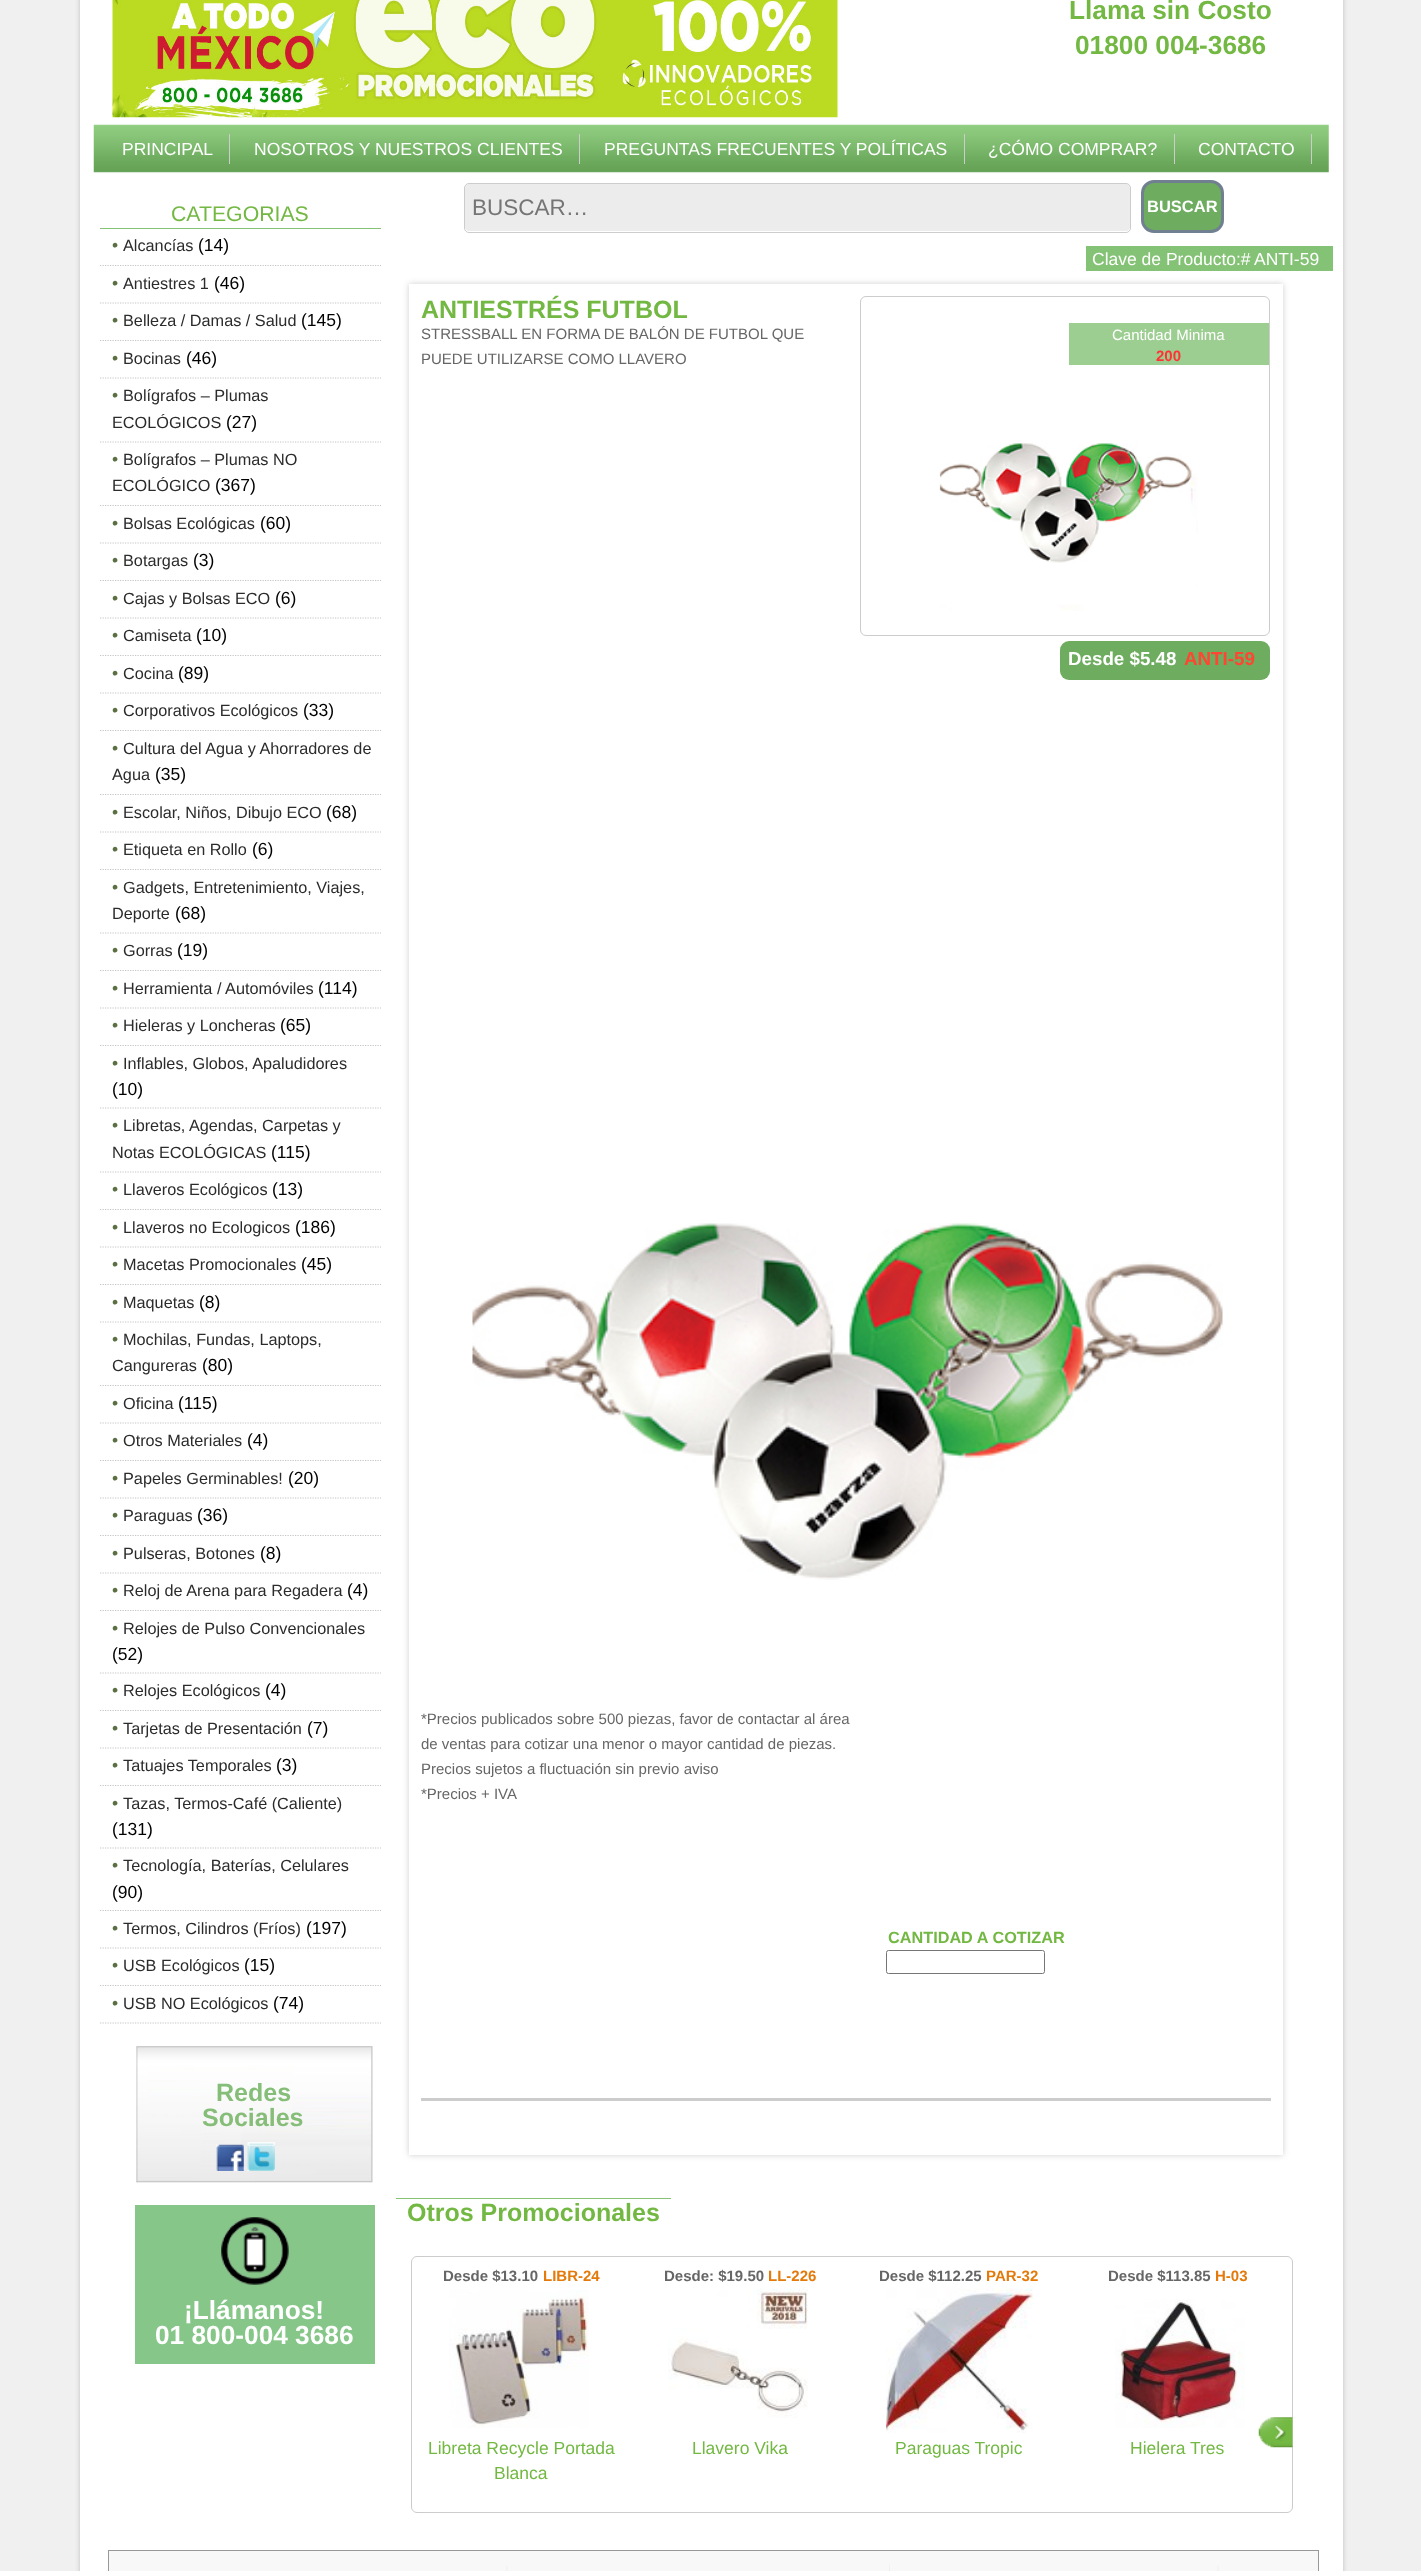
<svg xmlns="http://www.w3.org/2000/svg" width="1421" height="2571">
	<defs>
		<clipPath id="clip1"><path d="M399 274H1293V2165H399ZM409 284H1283V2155H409Z" clip-rule="evenodd" /></clipPath>
	</defs>
	<rect width="100%" height="100%" fill="#F0F0F0" />
	<rect x="80" y="-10" width="1263" height="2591" rx="2.5" fill="#000000" fill-opacity="0.2" filter="blur(2.5px)" />
	<rect x="80" y="0" width="1263" height="2571" fill="#FFFFFF" />
	<image x="112" y="0" width="726" height="118" href="assets/img1.png" />
	<g font-family="Liberation Sans" font-size="26.25" font-weight="700" fill="#73B843">
		<text x="1069" y="19">Llama sin Costo</text>
		<text x="1075" y="54">01800 004-3686</text>
	</g>
	<image x="93" y="124" width="1236" height="49" href="assets/img2.png" />
	<text x="122" y="155" font-family="Liberation Sans" font-size="17.5" fill="#FFFFFF">PRINCIPAL</text>
	<rect x="229" y="134" width="1" height="30" fill="#CCCCCC" />
	<text x="254" y="155" font-family="Liberation Sans" font-size="17.5" fill="#FFFFFF">NOSOTROS Y NUESTROS CLIENTES</text>
	<rect x="579" y="134" width="1" height="30" fill="#CCCCCC" />
	<text x="604" y="155" font-family="Liberation Sans" font-size="17.5" fill="#FFFFFF">PREGUNTAS FRECUENTES Y POLÍTICAS</text>
	<rect x="964" y="134" width="1" height="30" fill="#CCCCCC" />
	<text x="988" y="155" font-family="Liberation Sans" font-size="17.5" fill="#FFFFFF">¿CÓMO COMPRAR?</text>
	<rect x="1174" y="134" width="1" height="30" fill="#CCCCCC" />
	<text x="1198" y="155" font-family="Liberation Sans" font-size="17.5" fill="#FFFFFF">CONTACTO</text>
	<rect x="1311" y="134" width="1" height="30" fill="#CCCCCC" />
	<path d="M469 184C467 184 465 186 465 188V227C465 229 467 231 469 231H1126C1128 231 1130 229 1130 227V188C1130 186 1128 184 1126 184Z" fill="#ECECEC" />
	<rect x="464.5" y="183.5" width="666" height="49" rx="4.5" fill="none" stroke="#CCCCCC" />
	<text x="472" y="215" font-family="Liberation Sans" font-size="22.5" fill="#757575">BUSCAR…</text>
	<rect x="1142.5" y="181.5" width="80" height="50" rx="11.5" fill="#6EAC5F" stroke="#708090" stroke-width="3" />
	<text x="1147" y="212" font-family="Liberation Sans" font-size="16.5" font-weight="700" fill="#FFFFFF">BUSCAR</text>
	<rect x="100" y="228" width="281" height="1" fill="#84C275" />
	<text x="171" y="221" font-family="Liberation Sans" font-size="21.25" fill="#73B843">CATEGORIAS</text>
	<path d="M100 265.5H381" fill="none" stroke="#C5C5C5" stroke-width="1.2" stroke-dasharray="1.25 1.25" />
	<text x="112" y="251" font-family="Liberation Sans" font-size="17.5" fill="#5B6F43">•</text>
	<text x="123" y="251" font-family="Liberation Sans" font-size="16.25" fill="#2B2B2B">Alcancías</text>
	<text x="198" y="251" font-family="Liberation Sans" font-size="17.5" fill="#000000">(14)</text>
	<path d="M100 303H381" fill="none" stroke="#C5C5C5" stroke-width="1.2" stroke-dasharray="1.25 1.25" />
	<text x="112" y="289" font-family="Liberation Sans" font-size="17.5" fill="#5B6F43">•</text>
	<text x="123" y="289" font-family="Liberation Sans" font-size="16.25" fill="#2B2B2B">Antiestres 1</text>
	<text x="214" y="289" font-family="Liberation Sans" font-size="17.5" fill="#000000">(46)</text>
	<path d="M100 340.5H381" fill="none" stroke="#C5C5C5" stroke-width="1.2" stroke-dasharray="1.25 1.25" />
	<text x="112" y="326" font-family="Liberation Sans" font-size="17.5" fill="#5B6F43">•</text>
	<text x="123" y="326" font-family="Liberation Sans" font-size="16.25" fill="#2B2B2B">Belleza / Damas / Salud</text>
	<text x="301" y="326" font-family="Liberation Sans" font-size="17.5" fill="#000000">(145)</text>
	<path d="M100 378H381" fill="none" stroke="#C5C5C5" stroke-width="1.2" stroke-dasharray="1.25 1.25" />
	<text x="112" y="364" font-family="Liberation Sans" font-size="17.5" fill="#5B6F43">•</text>
	<text x="123" y="364" font-family="Liberation Sans" font-size="16.25" fill="#2B2B2B">Bocinas</text>
	<text x="186" y="364" font-family="Liberation Sans" font-size="17.5" fill="#000000">(46)</text>
	<path d="M100 442H381" fill="none" stroke="#C5C5C5" stroke-width="1.2" stroke-dasharray="1.25 1.25" />
	<text x="112" y="401" font-family="Liberation Sans" font-size="17.5" fill="#5B6F43">•</text>
	<g font-family="Liberation Sans" font-size="16.25" fill="#2B2B2B">
		<text x="123" y="401">Bolígrafos – Plumas</text>
		<text x="112" y="428">ECOLÓGICOS</text>
	</g>
	<text x="226" y="428" font-family="Liberation Sans" font-size="17.5" fill="#000000">(27)</text>
	<path d="M100 505.5H381" fill="none" stroke="#C5C5C5" stroke-width="1.2" stroke-dasharray="1.25 1.25" />
	<text x="112" y="465" font-family="Liberation Sans" font-size="17.5" fill="#5B6F43">•</text>
	<g font-family="Liberation Sans" font-size="16.25" fill="#2B2B2B">
		<text x="123" y="465">Bolígrafos – Plumas NO</text>
		<text x="112" y="491">ECOLÓGICO</text>
	</g>
	<text x="215" y="491" font-family="Liberation Sans" font-size="17.5" fill="#000000">(367)</text>
	<path d="M100 543H381" fill="none" stroke="#C5C5C5" stroke-width="1.2" stroke-dasharray="1.25 1.25" />
	<text x="112" y="529" font-family="Liberation Sans" font-size="17.5" fill="#5B6F43">•</text>
	<text x="123" y="529" font-family="Liberation Sans" font-size="16.25" fill="#2B2B2B">Bolsas Ecológicas</text>
	<text x="260" y="529" font-family="Liberation Sans" font-size="17.5" fill="#000000">(60)</text>
	<path d="M100 580.5H381" fill="none" stroke="#C5C5C5" stroke-width="1.2" stroke-dasharray="1.25 1.25" />
	<text x="112" y="566" font-family="Liberation Sans" font-size="17.5" fill="#5B6F43">•</text>
	<text x="123" y="566" font-family="Liberation Sans" font-size="16.25" fill="#2B2B2B">Botargas</text>
	<text x="193" y="566" font-family="Liberation Sans" font-size="17.5" fill="#000000">(3)</text>
	<path d="M100 618H381" fill="none" stroke="#C5C5C5" stroke-width="1.2" stroke-dasharray="1.25 1.25" />
	<text x="112" y="604" font-family="Liberation Sans" font-size="17.5" fill="#5B6F43">•</text>
	<text x="123" y="604" font-family="Liberation Sans" font-size="16.25" fill="#2B2B2B">Cajas y Bolsas ECO</text>
	<text x="275" y="604" font-family="Liberation Sans" font-size="17.5" fill="#000000">(6)</text>
	<path d="M100 655.5H381" fill="none" stroke="#C5C5C5" stroke-width="1.2" stroke-dasharray="1.25 1.25" />
	<text x="112" y="641" font-family="Liberation Sans" font-size="17.5" fill="#5B6F43">•</text>
	<text x="123" y="641" font-family="Liberation Sans" font-size="16.25" fill="#2B2B2B">Camiseta</text>
	<text x="196" y="641" font-family="Liberation Sans" font-size="17.5" fill="#000000">(10)</text>
	<path d="M100 693H381" fill="none" stroke="#C5C5C5" stroke-width="1.2" stroke-dasharray="1.25 1.25" />
	<text x="112" y="679" font-family="Liberation Sans" font-size="17.5" fill="#5B6F43">•</text>
	<text x="123" y="679" font-family="Liberation Sans" font-size="16.25" fill="#2B2B2B">Cocina</text>
	<text x="178" y="679" font-family="Liberation Sans" font-size="17.5" fill="#000000">(89)</text>
	<path d="M100 730.5H381" fill="none" stroke="#C5C5C5" stroke-width="1.2" stroke-dasharray="1.25 1.25" />
	<text x="112" y="716" font-family="Liberation Sans" font-size="17.5" fill="#5B6F43">•</text>
	<text x="123" y="716" font-family="Liberation Sans" font-size="16.25" fill="#2B2B2B">Corporativos Ecológicos</text>
	<text x="303" y="716" font-family="Liberation Sans" font-size="17.5" fill="#000000">(33)</text>
	<path d="M100 794.5H381" fill="none" stroke="#C5C5C5" stroke-width="1.2" stroke-dasharray="1.25 1.25" />
	<text x="112" y="754" font-family="Liberation Sans" font-size="17.5" fill="#5B6F43">•</text>
	<g font-family="Liberation Sans" font-size="16.25" fill="#2B2B2B">
		<text x="123" y="754">Cultura del Agua y Ahorradores de</text>
		<text x="112" y="780">Agua</text>
	</g>
	<text x="155" y="780" font-family="Liberation Sans" font-size="17.5" fill="#000000">(35)</text>
	<path d="M100 832H381" fill="none" stroke="#C5C5C5" stroke-width="1.2" stroke-dasharray="1.25 1.25" />
	<text x="112" y="818" font-family="Liberation Sans" font-size="17.5" fill="#5B6F43">•</text>
	<text x="123" y="818" font-family="Liberation Sans" font-size="16.25" fill="#2B2B2B">Escolar, Niños, Dibujo ECO</text>
	<text x="326" y="818" font-family="Liberation Sans" font-size="17.5" fill="#000000">(68)</text>
	<path d="M100 869.5H381" fill="none" stroke="#C5C5C5" stroke-width="1.2" stroke-dasharray="1.25 1.25" />
	<text x="112" y="855" font-family="Liberation Sans" font-size="17.5" fill="#5B6F43">•</text>
	<text x="123" y="855" font-family="Liberation Sans" font-size="16.25" fill="#2B2B2B">Etiqueta en Rollo</text>
	<text x="252" y="855" font-family="Liberation Sans" font-size="17.5" fill="#000000">(6)</text>
	<path d="M100 933H381" fill="none" stroke="#C5C5C5" stroke-width="1.2" stroke-dasharray="1.25 1.25" />
	<text x="112" y="893" font-family="Liberation Sans" font-size="17.5" fill="#5B6F43">•</text>
	<g font-family="Liberation Sans" font-size="16.25" fill="#2B2B2B">
		<text x="123" y="893">Gadgets, Entretenimiento, Viajes,</text>
		<text x="112" y="919">Deporte</text>
	</g>
	<text x="175" y="919" font-family="Liberation Sans" font-size="17.5" fill="#000000">(68)</text>
	<path d="M100 970.5H381" fill="none" stroke="#C5C5C5" stroke-width="1.2" stroke-dasharray="1.25 1.25" />
	<text x="112" y="956" font-family="Liberation Sans" font-size="17.5" fill="#5B6F43">•</text>
	<text x="123" y="956" font-family="Liberation Sans" font-size="16.25" fill="#2B2B2B">Gorras</text>
	<text x="177" y="956" font-family="Liberation Sans" font-size="17.5" fill="#000000">(19)</text>
	<path d="M100 1008H381" fill="none" stroke="#C5C5C5" stroke-width="1.2" stroke-dasharray="1.25 1.25" />
	<text x="112" y="994" font-family="Liberation Sans" font-size="17.5" fill="#5B6F43">•</text>
	<text x="123" y="994" font-family="Liberation Sans" font-size="16.25" fill="#2B2B2B">Herramienta / Automóviles</text>
	<text x="318" y="994" font-family="Liberation Sans" font-size="17.5" fill="#000000">(114)</text>
	<path d="M100 1045.5H381" fill="none" stroke="#C5C5C5" stroke-width="1.2" stroke-dasharray="1.25 1.25" />
	<text x="112" y="1031" font-family="Liberation Sans" font-size="17.5" fill="#5B6F43">•</text>
	<text x="123" y="1031" font-family="Liberation Sans" font-size="16.25" fill="#2B2B2B">Hieleras y Loncheras</text>
	<text x="280" y="1031" font-family="Liberation Sans" font-size="17.5" fill="#000000">(65)</text>
	<path d="M100 1108H381" fill="none" stroke="#C5C5C5" stroke-width="1.2" stroke-dasharray="1.25 1.25" />
	<text x="112" y="1069" font-family="Liberation Sans" font-size="17.5" fill="#5B6F43">•</text>
	<text x="123" y="1069" font-family="Liberation Sans" font-size="16.25" fill="#2B2B2B">Inflables, Globos, Apaludidores</text>
	<text x="112" y="1095" font-family="Liberation Sans" font-size="17.5" fill="#000000">(10)</text>
	<path d="M100 1172H381" fill="none" stroke="#C5C5C5" stroke-width="1.2" stroke-dasharray="1.25 1.25" />
	<text x="112" y="1131" font-family="Liberation Sans" font-size="17.5" fill="#5B6F43">•</text>
	<g font-family="Liberation Sans" font-size="16.25" fill="#2B2B2B">
		<text x="123" y="1131">Libretas, Agendas, Carpetas y</text>
		<text x="112" y="1158">Notas ECOLÓGICAS</text>
	</g>
	<text x="271" y="1158" font-family="Liberation Sans" font-size="17.5" fill="#000000">(115)</text>
	<path d="M100 1209.5H381" fill="none" stroke="#C5C5C5" stroke-width="1.2" stroke-dasharray="1.25 1.25" />
	<text x="112" y="1195" font-family="Liberation Sans" font-size="17.5" fill="#5B6F43">•</text>
	<text x="123" y="1195" font-family="Liberation Sans" font-size="16.25" fill="#2B2B2B">Llaveros Ecológicos</text>
	<text x="272" y="1195" font-family="Liberation Sans" font-size="17.5" fill="#000000">(13)</text>
	<path d="M100 1247H381" fill="none" stroke="#C5C5C5" stroke-width="1.2" stroke-dasharray="1.25 1.25" />
	<text x="112" y="1233" font-family="Liberation Sans" font-size="17.5" fill="#5B6F43">•</text>
	<text x="123" y="1233" font-family="Liberation Sans" font-size="16.25" fill="#2B2B2B">Llaveros no Ecologicos</text>
	<text x="295" y="1233" font-family="Liberation Sans" font-size="17.5" fill="#000000">(186)</text>
	<path d="M100 1284.5H381" fill="none" stroke="#C5C5C5" stroke-width="1.2" stroke-dasharray="1.25 1.25" />
	<text x="112" y="1270" font-family="Liberation Sans" font-size="17.5" fill="#5B6F43">•</text>
	<text x="123" y="1270" font-family="Liberation Sans" font-size="16.25" fill="#2B2B2B">Macetas Promocionales</text>
	<text x="301" y="1270" font-family="Liberation Sans" font-size="17.5" fill="#000000">(45)</text>
	<path d="M100 1322H381" fill="none" stroke="#C5C5C5" stroke-width="1.2" stroke-dasharray="1.25 1.25" />
	<text x="112" y="1308" font-family="Liberation Sans" font-size="17.5" fill="#5B6F43">•</text>
	<text x="123" y="1308" font-family="Liberation Sans" font-size="16.25" fill="#2B2B2B">Maquetas</text>
	<text x="199" y="1308" font-family="Liberation Sans" font-size="17.5" fill="#000000">(8)</text>
	<path d="M100 1385.5H381" fill="none" stroke="#C5C5C5" stroke-width="1.2" stroke-dasharray="1.25 1.25" />
	<text x="112" y="1345" font-family="Liberation Sans" font-size="17.5" fill="#5B6F43">•</text>
	<g font-family="Liberation Sans" font-size="16.25" fill="#2B2B2B">
		<text x="123" y="1345">Mochilas, Fundas, Laptops,</text>
		<text x="112" y="1371">Cangureras</text>
	</g>
	<text x="202" y="1371" font-family="Liberation Sans" font-size="17.5" fill="#000000">(80)</text>
	<path d="M100 1423H381" fill="none" stroke="#C5C5C5" stroke-width="1.2" stroke-dasharray="1.25 1.25" />
	<text x="112" y="1409" font-family="Liberation Sans" font-size="17.5" fill="#5B6F43">•</text>
	<text x="123" y="1409" font-family="Liberation Sans" font-size="16.25" fill="#2B2B2B">Oficina</text>
	<text x="178" y="1409" font-family="Liberation Sans" font-size="17.5" fill="#000000">(115)</text>
	<path d="M100 1460.5H381" fill="none" stroke="#C5C5C5" stroke-width="1.2" stroke-dasharray="1.25 1.25" />
	<text x="112" y="1446" font-family="Liberation Sans" font-size="17.5" fill="#5B6F43">•</text>
	<text x="123" y="1446" font-family="Liberation Sans" font-size="16.25" fill="#2B2B2B">Otros Materiales</text>
	<text x="247" y="1446" font-family="Liberation Sans" font-size="17.5" fill="#000000">(4)</text>
	<path d="M100 1498H381" fill="none" stroke="#C5C5C5" stroke-width="1.2" stroke-dasharray="1.25 1.25" />
	<text x="112" y="1484" font-family="Liberation Sans" font-size="17.5" fill="#5B6F43">•</text>
	<text x="123" y="1484" font-family="Liberation Sans" font-size="16.25" fill="#2B2B2B">Papeles Germinables!</text>
	<text x="288" y="1484" font-family="Liberation Sans" font-size="17.5" fill="#000000">(20)</text>
	<path d="M100 1535.5H381" fill="none" stroke="#C5C5C5" stroke-width="1.2" stroke-dasharray="1.25 1.25" />
	<text x="112" y="1521" font-family="Liberation Sans" font-size="17.5" fill="#5B6F43">•</text>
	<text x="123" y="1521" font-family="Liberation Sans" font-size="16.25" fill="#2B2B2B">Paraguas</text>
	<text x="197" y="1521" font-family="Liberation Sans" font-size="17.5" fill="#000000">(36)</text>
	<path d="M100 1573H381" fill="none" stroke="#C5C5C5" stroke-width="1.2" stroke-dasharray="1.25 1.25" />
	<text x="112" y="1559" font-family="Liberation Sans" font-size="17.5" fill="#5B6F43">•</text>
	<text x="123" y="1559" font-family="Liberation Sans" font-size="16.25" fill="#2B2B2B">Pulseras, Botones</text>
	<text x="260" y="1559" font-family="Liberation Sans" font-size="17.5" fill="#000000">(8)</text>
	<path d="M100 1610.5H381" fill="none" stroke="#C5C5C5" stroke-width="1.2" stroke-dasharray="1.25 1.25" />
	<text x="112" y="1596" font-family="Liberation Sans" font-size="17.5" fill="#5B6F43">•</text>
	<text x="123" y="1596" font-family="Liberation Sans" font-size="16.25" fill="#2B2B2B">Reloj de Arena para Regadera</text>
	<text x="347" y="1596" font-family="Liberation Sans" font-size="17.5" fill="#000000">(4)</text>
	<path d="M100 1673H381" fill="none" stroke="#C5C5C5" stroke-width="1.2" stroke-dasharray="1.25 1.25" />
	<text x="112" y="1634" font-family="Liberation Sans" font-size="17.5" fill="#5B6F43">•</text>
	<text x="123" y="1634" font-family="Liberation Sans" font-size="16.25" fill="#2B2B2B">Relojes de Pulso Convencionales</text>
	<text x="112" y="1660" font-family="Liberation Sans" font-size="17.5" fill="#000000">(52)</text>
	<path d="M100 1710.5H381" fill="none" stroke="#C5C5C5" stroke-width="1.2" stroke-dasharray="1.25 1.25" />
	<text x="112" y="1696" font-family="Liberation Sans" font-size="17.5" fill="#5B6F43">•</text>
	<text x="123" y="1696" font-family="Liberation Sans" font-size="16.25" fill="#2B2B2B">Relojes Ecológicos</text>
	<text x="265" y="1696" font-family="Liberation Sans" font-size="17.5" fill="#000000">(4)</text>
	<path d="M100 1748H381" fill="none" stroke="#C5C5C5" stroke-width="1.2" stroke-dasharray="1.25 1.25" />
	<text x="112" y="1734" font-family="Liberation Sans" font-size="17.5" fill="#5B6F43">•</text>
	<text x="123" y="1734" font-family="Liberation Sans" font-size="16.25" fill="#2B2B2B">Tarjetas de Presentación</text>
	<text x="307" y="1734" font-family="Liberation Sans" font-size="17.5" fill="#000000">(7)</text>
	<path d="M100 1785.5H381" fill="none" stroke="#C5C5C5" stroke-width="1.2" stroke-dasharray="1.25 1.25" />
	<text x="112" y="1771" font-family="Liberation Sans" font-size="17.5" fill="#5B6F43">•</text>
	<text x="123" y="1771" font-family="Liberation Sans" font-size="16.25" fill="#2B2B2B">Tatuajes Temporales</text>
	<text x="276" y="1771" font-family="Liberation Sans" font-size="17.5" fill="#000000">(3)</text>
	<path d="M100 1848H381" fill="none" stroke="#C5C5C5" stroke-width="1.2" stroke-dasharray="1.25 1.25" />
	<text x="112" y="1809" font-family="Liberation Sans" font-size="17.5" fill="#5B6F43">•</text>
	<text x="123" y="1809" font-family="Liberation Sans" font-size="16.25" fill="#2B2B2B">Tazas, Termos-Café (Caliente)</text>
	<text x="112" y="1835" font-family="Liberation Sans" font-size="17.5" fill="#000000">(131)</text>
	<path d="M100 1910.5H381" fill="none" stroke="#C5C5C5" stroke-width="1.2" stroke-dasharray="1.25 1.25" />
	<text x="112" y="1871" font-family="Liberation Sans" font-size="17.5" fill="#5B6F43">•</text>
	<text x="123" y="1871" font-family="Liberation Sans" font-size="16.25" fill="#2B2B2B">Tecnología, Baterías, Celulares</text>
	<text x="112" y="1898" font-family="Liberation Sans" font-size="17.5" fill="#000000">(90)</text>
	<path d="M100 1948H381" fill="none" stroke="#C5C5C5" stroke-width="1.2" stroke-dasharray="1.25 1.25" />
	<text x="112" y="1934" font-family="Liberation Sans" font-size="17.5" fill="#5B6F43">•</text>
	<text x="123" y="1934" font-family="Liberation Sans" font-size="16.25" fill="#2B2B2B">Termos, Cilindros (Fríos)</text>
	<text x="306" y="1934" font-family="Liberation Sans" font-size="17.5" fill="#000000">(197)</text>
	<path d="M100 1985.5H381" fill="none" stroke="#C5C5C5" stroke-width="1.2" stroke-dasharray="1.25 1.25" />
	<text x="112" y="1971" font-family="Liberation Sans" font-size="17.5" fill="#5B6F43">•</text>
	<text x="123" y="1971" font-family="Liberation Sans" font-size="16.25" fill="#2B2B2B">USB Ecológicos</text>
	<text x="244" y="1971" font-family="Liberation Sans" font-size="17.5" fill="#000000">(15)</text>
	<path d="M100 2023H381" fill="none" stroke="#C5C5C5" stroke-width="1.2" stroke-dasharray="1.25 1.25" />
	<text x="112" y="2009" font-family="Liberation Sans" font-size="17.5" fill="#5B6F43">•</text>
	<text x="123" y="2009" font-family="Liberation Sans" font-size="16.25" fill="#2B2B2B">USB NO Ecológicos</text>
	<text x="273" y="2009" font-family="Liberation Sans" font-size="17.5" fill="#000000">(74)</text>
	<image x="136" y="2046" width="237" height="137" href="assets/img3.png" />
	<g font-family="Liberation Sans" font-size="25" font-weight="700" fill="#86BD79">
		<text x="216" y="2101">Redes</text>
		<text x="202" y="2126">Sociales</text>
	</g>
	<image x="216" y="2144" width="28" height="27" href="assets/img4.png" />
	<image x="247" y="2142" width="28" height="29" href="assets/img5.png" />
	<rect x="135" y="2205" width="240" height="159" fill="#86C789" />
	<image x="221" y="2217" width="68" height="68" href="assets/img6.png" />
	<g font-family="Liberation Sans" font-size="26.25" font-weight="700" fill="#FFFFFF">
		<text x="184" y="2319">¡Llámanos!</text>
		<text x="155" y="2344">01 800-004 3686</text>
	</g>
	<rect x="1086" y="246" width="247" height="25" fill="#84C275" />
	<g font-family="Liberation Sans" font-size="17.5" fill="#FFFFFF">
		<text x="1092" y="265">Clave de Producto:#</text>
		<text x="1254" y="265">ANTI-59</text>
	</g>
	<g clip-path="url(#clip1)">
		<rect x="409" y="284" width="874" height="1871" fill="#CECECE" filter="blur(3px)" />
	</g>
	<text x="421" y="318" font-family="Liberation Sans" font-size="25" font-weight="700" fill="#73B843">ANTIESTRÉS FUTBOL</text>
	<g font-family="Liberation Sans" font-size="15" fill="#666666">
		<text x="421" y="339">STRESSBALL EN FORMA DE BALÓN DE FUTBOL QUE</text>
		<text x="421" y="364">PUEDE UTILIZARSE COMO LLAVERO</text>
	</g>
	<image x="472" y="1223" width="751" height="357" href="assets/img7.png" />
	<g font-family="Liberation Sans" font-size="15" fill="#666666">
		<text x="421" y="1724">*Precios publicados sobre 500 piezas, favor de contactar al área</text>
		<text x="421" y="1749">de ventas para cotizar una menor o mayor cantidad de piezas.</text>
		<text x="421" y="1774">Precios sujetos a fluctuación sin previo aviso</text>
		<text x="421" y="1799">*Precios + IVA</text>
	</g>
	<rect x="860.5" y="296.5" width="409" height="339" rx="5.5" fill="none" stroke="#CCCCCC" />
	<rect x="1069" y="323" width="200" height="42" fill="#9DCE91" />
	<text x="1112" y="340" font-family="Liberation Sans" font-size="15" fill="#FFFFFF">Cantidad Minima</text>
	<text x="1156" y="361" font-family="Liberation Sans" font-size="15" font-weight="700" fill="#FF3333">200</text>
	<image x="939" y="443" width="259" height="168" href="assets/img8.png" />
	<rect x="1060" y="641" width="210" height="39" rx="9" fill="#6EAC5F" />
	<text x="1068" y="665" font-family="Liberation Sans" font-size="18.75" font-weight="700" fill="#FFFFFF">Desde $5.48</text>
	<text x="1184" y="665" font-family="Liberation Sans" font-size="18.75" font-weight="700" fill="#FF4632">ANTI-59</text>
	<text x="888" y="1943" font-family="Liberation Sans" font-size="16.25" font-weight="700" fill="#73B843">CANTIDAD A COTIZAR</text>
	<rect x="886.5" y="1950.5" width="158" height="23" rx="2" fill="none" stroke="#767676" />
	<rect x="421" y="2098" width="850" height="3" fill="#CCCCCC" />
	<rect x="396" y="2198" width="275" height="1" fill="#84C275" />
	<text x="407" y="2221" font-family="Liberation Sans" font-size="25" font-weight="700" fill="#73B843">Otros Promocionales</text>
	<rect x="411.5" y="2256.5" width="881" height="256" rx="5.5" fill="none" stroke="#CCCCCC" />
	<text x="443" y="2281" font-family="Liberation Sans" font-size="15" font-weight="700" fill="#666666">Desde $13.10</text>
	<text x="543" y="2281" font-family="Liberation Sans" font-size="15" font-weight="700" fill="#E37A0B">LIBR-24</text>
	<image x="449" y="2289" width="140" height="139" href="assets/img9.png" />
	<g font-family="Liberation Sans" font-size="17.5" fill="#73B843">
		<text x="428" y="2454">Libreta Recycle Portada</text>
		<text x="494" y="2479">Blanca</text>
	</g>
	<text x="664" y="2281" font-family="Liberation Sans" font-size="15" font-weight="700" fill="#666666">Desde: $19.50</text>
	<text x="768" y="2281" font-family="Liberation Sans" font-size="15" font-weight="700" fill="#E37A0B">LL-226</text>
	<image x="668" y="2288" width="140" height="130" href="assets/img10.png" />
	<text x="692" y="2454" font-family="Liberation Sans" font-size="17.5" fill="#73B843">Llavero Vika</text>
	<text x="879" y="2281" font-family="Liberation Sans" font-size="15" font-weight="700" fill="#666666">Desde $112.25</text>
	<text x="986" y="2281" font-family="Liberation Sans" font-size="15" font-weight="700" fill="#E37A0B">PAR-32</text>
	<image x="886" y="2288" width="147" height="145" href="assets/img11.png" />
	<text x="895" y="2454" font-family="Liberation Sans" font-size="17.5" fill="#73B843">Paraguas Tropic</text>
	<text x="1108" y="2281" font-family="Liberation Sans" font-size="15" font-weight="700" fill="#666666">Desde $113.85</text>
	<text x="1215" y="2281" font-family="Liberation Sans" font-size="15" font-weight="700" fill="#E37A0B">H-03</text>
	<image x="1115" y="2299" width="130" height="129" href="assets/img12.png" />
	<text x="1130" y="2454" font-family="Liberation Sans" font-size="17.5" fill="#73B843">Hielera Tres</text>
	<image x="1258" y="2417" width="35" height="31" href="assets/img13.png" />
	<rect x="108.5" y="2550.5" width="1210" height="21" fill="#F8F8F8" stroke="#999999" />
	<image x="506" y="2565" width="2" height="6" href="assets/img14.png" />
	<image x="889" y="2564" width="1" height="7" href="assets/img15.png" />
	<image x="1217" y="2565" width="2" height="6" href="assets/img16.png" />
</svg>
